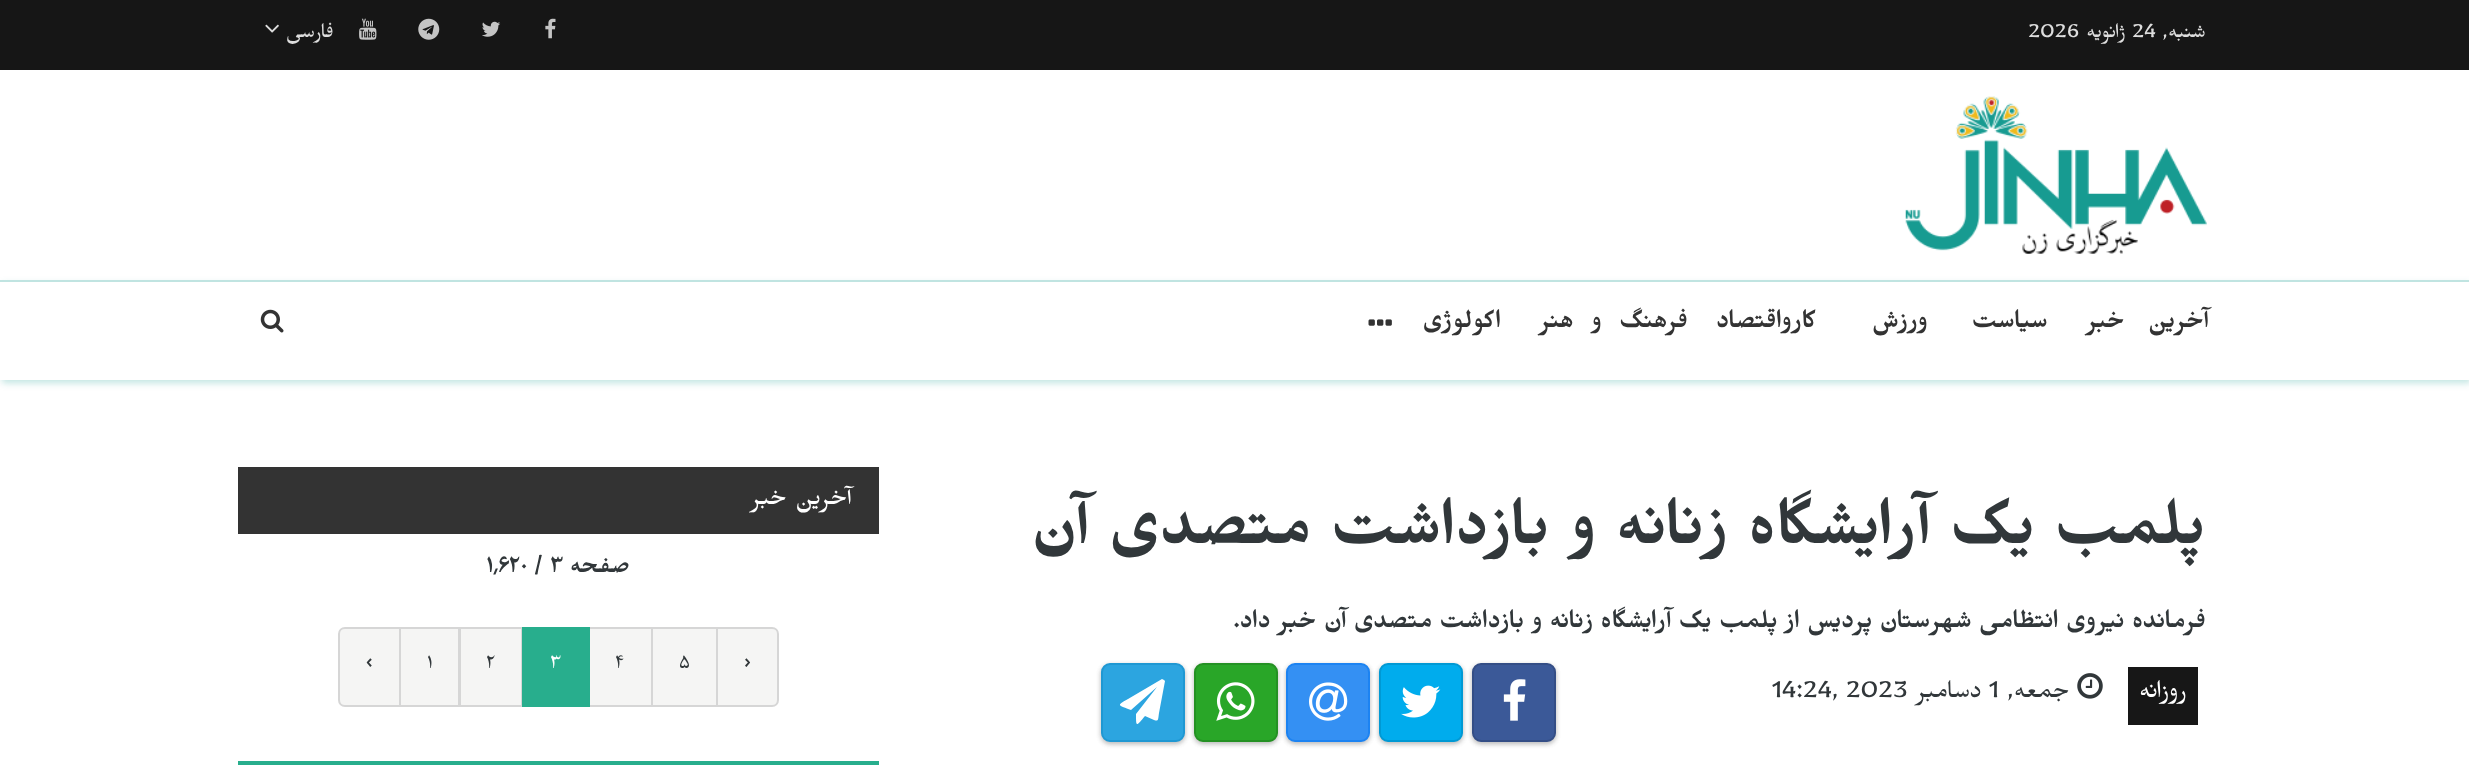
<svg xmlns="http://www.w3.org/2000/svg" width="2469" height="765">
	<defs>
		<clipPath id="clip1"><path d="M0 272H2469V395H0ZM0 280H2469V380H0Z" clip-rule="evenodd" /></clipPath>
	</defs>
	<rect width="100%" height="100%" fill="#FFFFFF" />
	<rect x="0" y="0" width="2469" height="70" fill="#161616" />
	<text x="2206" y="37" font-family="Mirza" font-size="24.5" direction="rtl" fill="#DDDDDD">شنبه,</text>
	<text x="2132" y="37" font-family="Mirza" font-size="24.5" fill="#DDDDDD">24</text>
	<text x="2126" y="37" font-family="Mirza" font-size="24.5" direction="rtl" fill="#DDDDDD">ژانویه</text>
	<text x="2028" y="37" font-family="Mirza" font-size="24.5" fill="#DDDDDD">2026</text>
	<image x="545" y="18" width="11" height="21" href="assets/img1.png" />
	<image x="482" y="21" width="19" height="16" href="assets/img2.png" />
	<image x="418" y="18" width="22" height="22" href="assets/img3.png" />
	<image x="359" y="18" width="18" height="22" href="assets/img4.png" />
	<text x="334" y="37" font-family="Mirza" font-size="24.5" direction="rtl" fill="#DDDDDD">فارسی</text>
	<image x="265" y="24" width="14" height="9" href="assets/img5.png" />
	<image x="1905" y="96" width="302" height="158" href="assets/img6.png" />
	<g clip-path="url(#clip1)">
		<rect x="2" y="284" width="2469" height="99" fill="#179B91" fill-opacity="0.27" filter="blur(3.5px)" />
	</g>
	<rect x="0" y="280" width="2469" height="2" fill="#C0E4E1" />
	<g font-family="Mirza" font-size="29.75" font-weight="600" letter-spacing="-1.75" direction="rtl" fill="#333333">
		<text x="2209" y="327" word-spacing="16">آخرین خبر</text>
		<text x="2048" y="327">سیاست</text>
		<text x="1928" y="327">ورزش</text>
		<text x="1816" y="327">کارواقتصاد</text>
		<text x="1688" y="327" word-spacing="10">فرهنگ و هنر</text>
		<text x="1501" y="327">اکولوژی</text>
	</g>
	<image x="1368" y="319" width="24" height="7" href="assets/img7.png" />
	<image x="260" y="309" width="24" height="24" href="assets/img8.png" />
	<text x="2206" y="543" font-family="Mirza" font-size="77" font-weight="600" direction="rtl" fill="#31373A">پلمب یک آرایشگاه زنانه و بازداشت متصدی آن</text>
	<text x="2206" y="627" font-family="Mirza" font-size="29.75" font-weight="600" direction="rtl" fill="#31373A">فرمانده نیروی انتظامی شهرستان پردیس از پلمب یک آرایشگاه زنانه و بازداشت متصدی آن خبر داد.</text>
	<rect x="2128" y="667" width="70" height="58" fill="#171717" />
	<text x="2187" y="697" font-family="Mirza" font-size="29.75" direction="rtl" fill="#FFFFFF">روزانه</text>
	<image x="2077" y="673" width="26" height="26" href="assets/img9.png" />
	<text x="2070" y="697" font-family="Mirza" font-size="29.75" direction="rtl" fill="#31373A">جمعه,</text>
	<text x="1989" y="697" font-family="Mirza" font-size="29.75" fill="#31373A">1</text>
	<text x="1982" y="697" font-family="Mirza" font-size="29.75" direction="rtl" fill="#31373A">دسامبر</text>
	<text x="1772" y="697" font-family="Mirza" font-size="29.75" fill="#31373A">14:24, 2023</text>
	<rect x="1472" y="665" width="84" height="79" rx="9" fill="#000000" fill-opacity="0.15" filter="blur(2.5px)" />
	<rect x="1472" y="665" width="84" height="79" rx="9" fill="#000000" fill-opacity="0.15" filter="blur(2.5px)" />
	<rect x="1473" y="664" width="82" height="77" rx="8" fill="#3B5998" stroke="#344E86" stroke-width="2" />
	<image x="1503" y="679" width="23" height="42" href="assets/img10.png" />
	<rect x="1379" y="665" width="84" height="79" rx="9" fill="#000000" fill-opacity="0.15" filter="blur(2.5px)" />
	<rect x="1379" y="665" width="84" height="79" rx="9" fill="#000000" fill-opacity="0.15" filter="blur(2.5px)" />
	<rect x="1380" y="664" width="82" height="77" rx="8" fill="#00ACED" stroke="#0099D4" stroke-width="2" />
	<image x="1401" y="685" width="40" height="33" href="assets/img11.png" />
	<rect x="1286" y="665" width="84" height="79" rx="9" fill="#000000" fill-opacity="0.15" filter="blur(2.5px)" />
	<rect x="1286" y="665" width="84" height="79" rx="9" fill="#000000" fill-opacity="0.15" filter="blur(2.5px)" />
	<rect x="1287" y="664" width="82" height="77" rx="8" fill="#3490F3" stroke="#1C83F2" stroke-width="2" />
	<image x="1309" y="682" width="39" height="39" href="assets/img12.png" />
	<rect x="1194" y="665" width="84" height="79" rx="9" fill="#000000" fill-opacity="0.15" filter="blur(2.5px)" />
	<rect x="1194" y="665" width="84" height="79" rx="9" fill="#000000" fill-opacity="0.15" filter="blur(2.5px)" />
	<rect x="1195" y="664" width="82" height="77" rx="8" fill="#29A628" stroke="#249123" stroke-width="2" />
	<image x="1216" y="682" width="39" height="39" href="assets/img13.png" />
	<rect x="1101" y="665" width="84" height="79" rx="9" fill="#000000" fill-opacity="0.15" filter="blur(2.5px)" />
	<rect x="1101" y="665" width="84" height="79" rx="9" fill="#000000" fill-opacity="0.15" filter="blur(2.5px)" />
	<rect x="1102" y="664" width="82" height="77" rx="8" fill="#2CA5E0" stroke="#1F98D3" stroke-width="2" />
	<path d="M1164 680L1165 681L1159 713C1158 719 1159 722 1154 720L1145 716C1136 727 1136 727 1136 714L1157 687L1131 710C1119 705 1115 706 1128 699L1162 679Z" fill="#FFFFFF" />
	<rect x="238" y="467" width="641" height="67" fill="#333333" />
	<text x="851" y="504" font-family="Mirza" font-size="29.75" direction="rtl" fill="#FFFFFF">آخرین خبر</text>
	<text x="630" y="572" font-family="Mirza" font-size="28" font-weight="600" direction="rtl" fill="#31373A">صفحه</text>
	<text x="486" y="572" font-family="Mirza" font-size="28" font-weight="600" fill="#31373A">۱٬۶۲۰ / ۳</text>
	<rect x="589" y="628" width="63" height="78" fill="#F5F5F4" stroke="#D6D6D6" stroke-width="2" />
	<rect x="652" y="628" width="65" height="78" fill="#F5F5F4" stroke="#D6D6D6" stroke-width="2" />
	<path d="M717 628H772C775.5 628 778 630.5 778 634V700C778 703.5 775.5 706 772 706H717Z" fill="#F5F5F4" stroke="#D6D6D6" stroke-width="2" />
	<g font-family="Mirza" font-size="24.5" fill="#31373A">
		<text x="744" y="668">›</text>
		<text x="679" y="668">۵</text>
		<text x="615" y="668">۴</text>
	</g>
	<path d="M345 628H400V706H345C341.5 706 339 703.5 339 700V634C339 630.5 341.5 628 345 628Z" fill="#F5F5F4" stroke="#D6D6D6" stroke-width="2" />
	<rect x="400" y="628" width="59" height="78" fill="#F5F5F4" stroke="#D6D6D6" stroke-width="2" />
	<rect x="460" y="628" width="62" height="78" fill="#F5F5F4" stroke="#D6D6D6" stroke-width="2" />
	<rect x="522" y="627" width="68" height="80" fill="#28AE8D" />
	<text x="550" y="668" font-family="Mirza" font-size="24.5" fill="#FFFFFF">۳</text>
	<g font-family="Mirza" font-size="24.5" fill="#31373A">
		<text x="486" y="668">۲</text>
		<text x="427" y="668">۱</text>
		<text x="366" y="668">‹</text>
	</g>
	<rect x="238" y="761" width="641" height="4" fill="#28AE8D" />
</svg>
